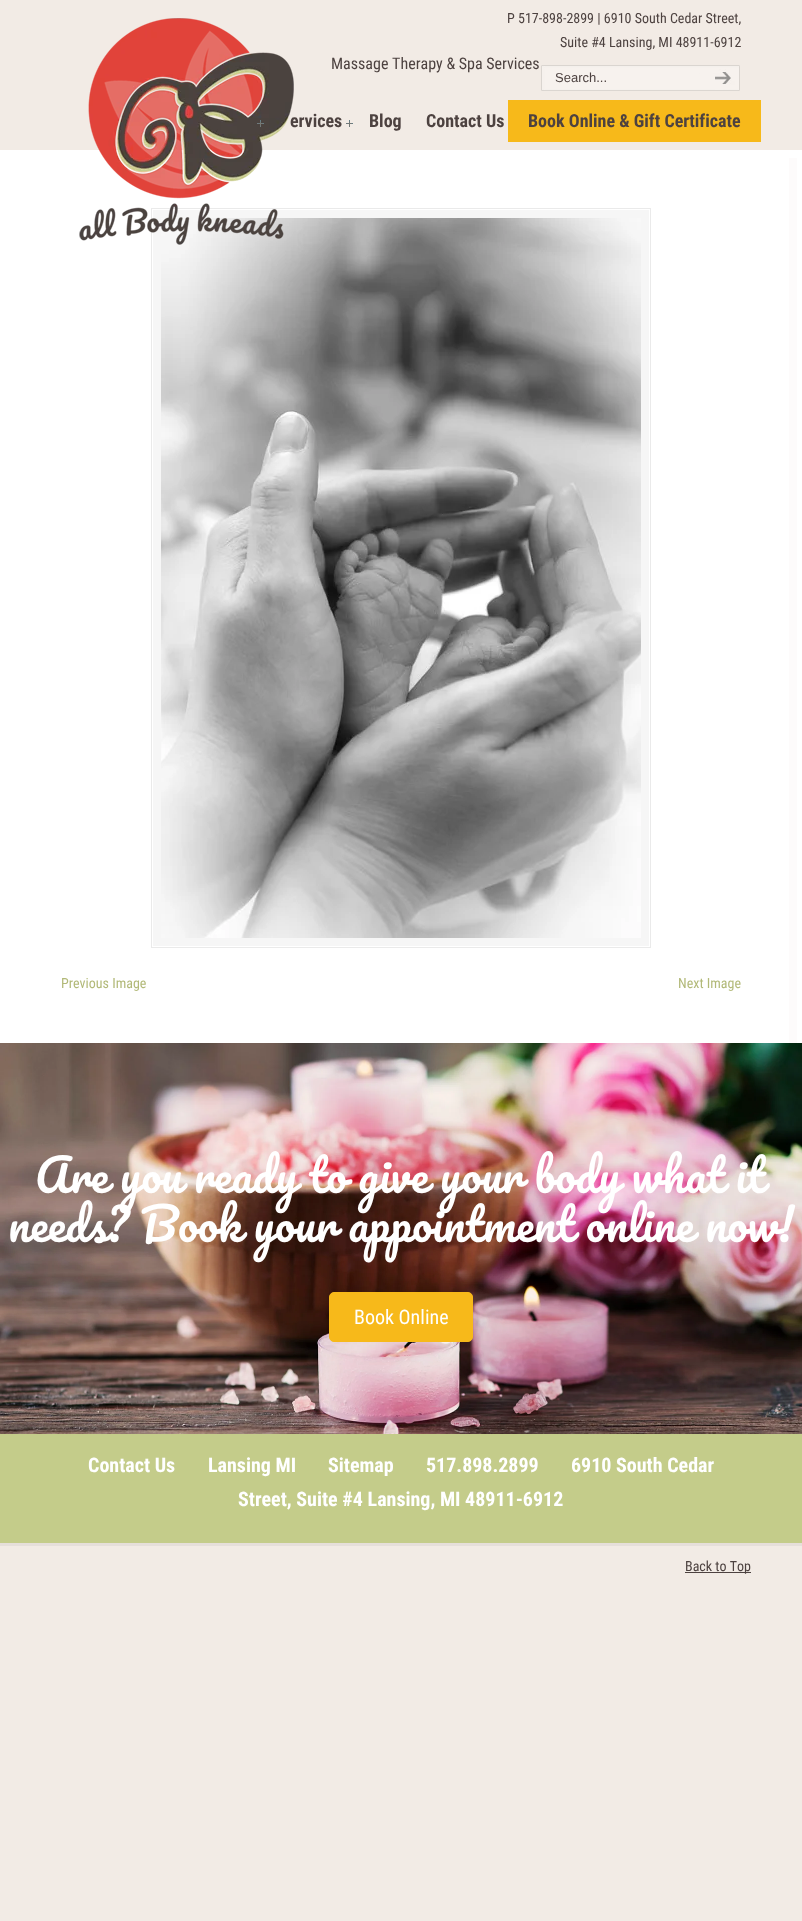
<svg xmlns="http://www.w3.org/2000/svg" width="802" height="1921">
	<style>*{font-kerning:none!important;font-variant-ligatures:none!important}</style>
	<rect width="100%" height="100%" fill="#F2EBE5" />
	<rect x="0" y="150" width="802" height="893" fill="#FFFFFF" />
	<rect x="153" y="210" width="496" height="736" fill="#F6F6F6" />
	<rect x="151.5" y="208.5" width="499" height="739" fill="none" stroke="#EAEAEA" />
	<image x="161" y="218" width="480" height="720" href="assets/img6.png" />
	<image x="79" y="18" width="215" height="227" href="assets/img1.png" />
	<text x="331" y="69" font-family="Roboto Condensed" font-size="16" fill="#4D4240">Massage Therapy &amp; Spa Services</text>
	<g font-family="Roboto Condensed" font-size="14" fill="#4D4240">
		<text x="507" y="23">P 517-898-2899 | 6910 South Cedar Street,</text>
		<text x="560" y="47">Suite #4 Lansing, MI 48911-6912</text>
	</g>
	<image x="541" y="65" width="159" height="26" href="assets/img2.png" />
	<text x="555" y="82" font-family="Liberation Sans" font-size="13" fill="#4D4240">Search...</text>
	<image x="700" y="65" width="40" height="26" href="assets/img3.png" />
	<image x="257" y="120" width="7" height="7" href="assets/img4.png" />
	<text x="290" y="127" font-family="Roboto Condensed" font-size="18" font-weight="700" fill="#4D4240">ervices</text>
	<image x="346" y="120" width="7" height="7" href="assets/img5.png" />
	<g font-family="Roboto Condensed" font-size="18" font-weight="700" fill="#4D4240">
		<text x="369" y="127">Blog</text>
		<text x="426" y="127">Contact Us</text>
	</g>
	<rect x="508" y="100" width="253" height="42" fill="#F7B91A" />
	<text x="528" y="127" font-family="Roboto Condensed" font-size="18" font-weight="700" fill="#4D4240">Book Online &amp; Gift Certificate</text>
	<rect x="789" y="158" width="8" height="885" fill="#FDFBFB" />
	<g font-family="Roboto Condensed" font-size="14" fill="#B2B978">
		<text x="61" y="988">Previous Image</text>
		<text x="678" y="988">Next Image</text>
	</g>
	<rect x="0" y="1434" width="802" height="109" fill="#C4CC8A" />
	<image x="0" y="1043" width="802" height="391" href="assets/img7.png" />
	<g font-family="Pacifico" font-size="44.75" fill="#FFFFFF">
		<text x="35" y="1193" word-spacing="-0.25">Are you ready to give your body what it</text>
		<text x="8" y="1242">needs? Book your appointment online now!</text>
	</g>
	<rect x="329.5" y="1292.5" width="143" height="49" rx="4.5" fill="#F7B91A" stroke="#F7B91A" />
	<text x="354" y="1324" font-family="Roboto Condensed" font-size="20" fill="#FFFFFF">Book Online</text>
	<g font-family="Roboto Condensed" font-size="20" font-weight="700" fill="#FFFFFF">
		<text x="88" y="1472">Contact Us</text>
		<text x="208" y="1472">Lansing MI</text>
		<text x="328" y="1472">Sitemap</text>
		<text x="426" y="1472">517.898.2899</text>
		<text x="571" y="1472">6910 South Cedar</text>
		<text x="238" y="1506">Street, Suite #4 Lansing, MI 48911-6912</text>
	</g>
	<rect x="0" y="1543" width="802" height="3" fill="#E6DFDA" />
	<rect x="685" y="1572" width="66" height="1" fill="#4D4240" />
	<text x="685" y="1571" font-family="Roboto Condensed" font-size="14" fill="#4D4240">Back to Top</text>
</svg>
